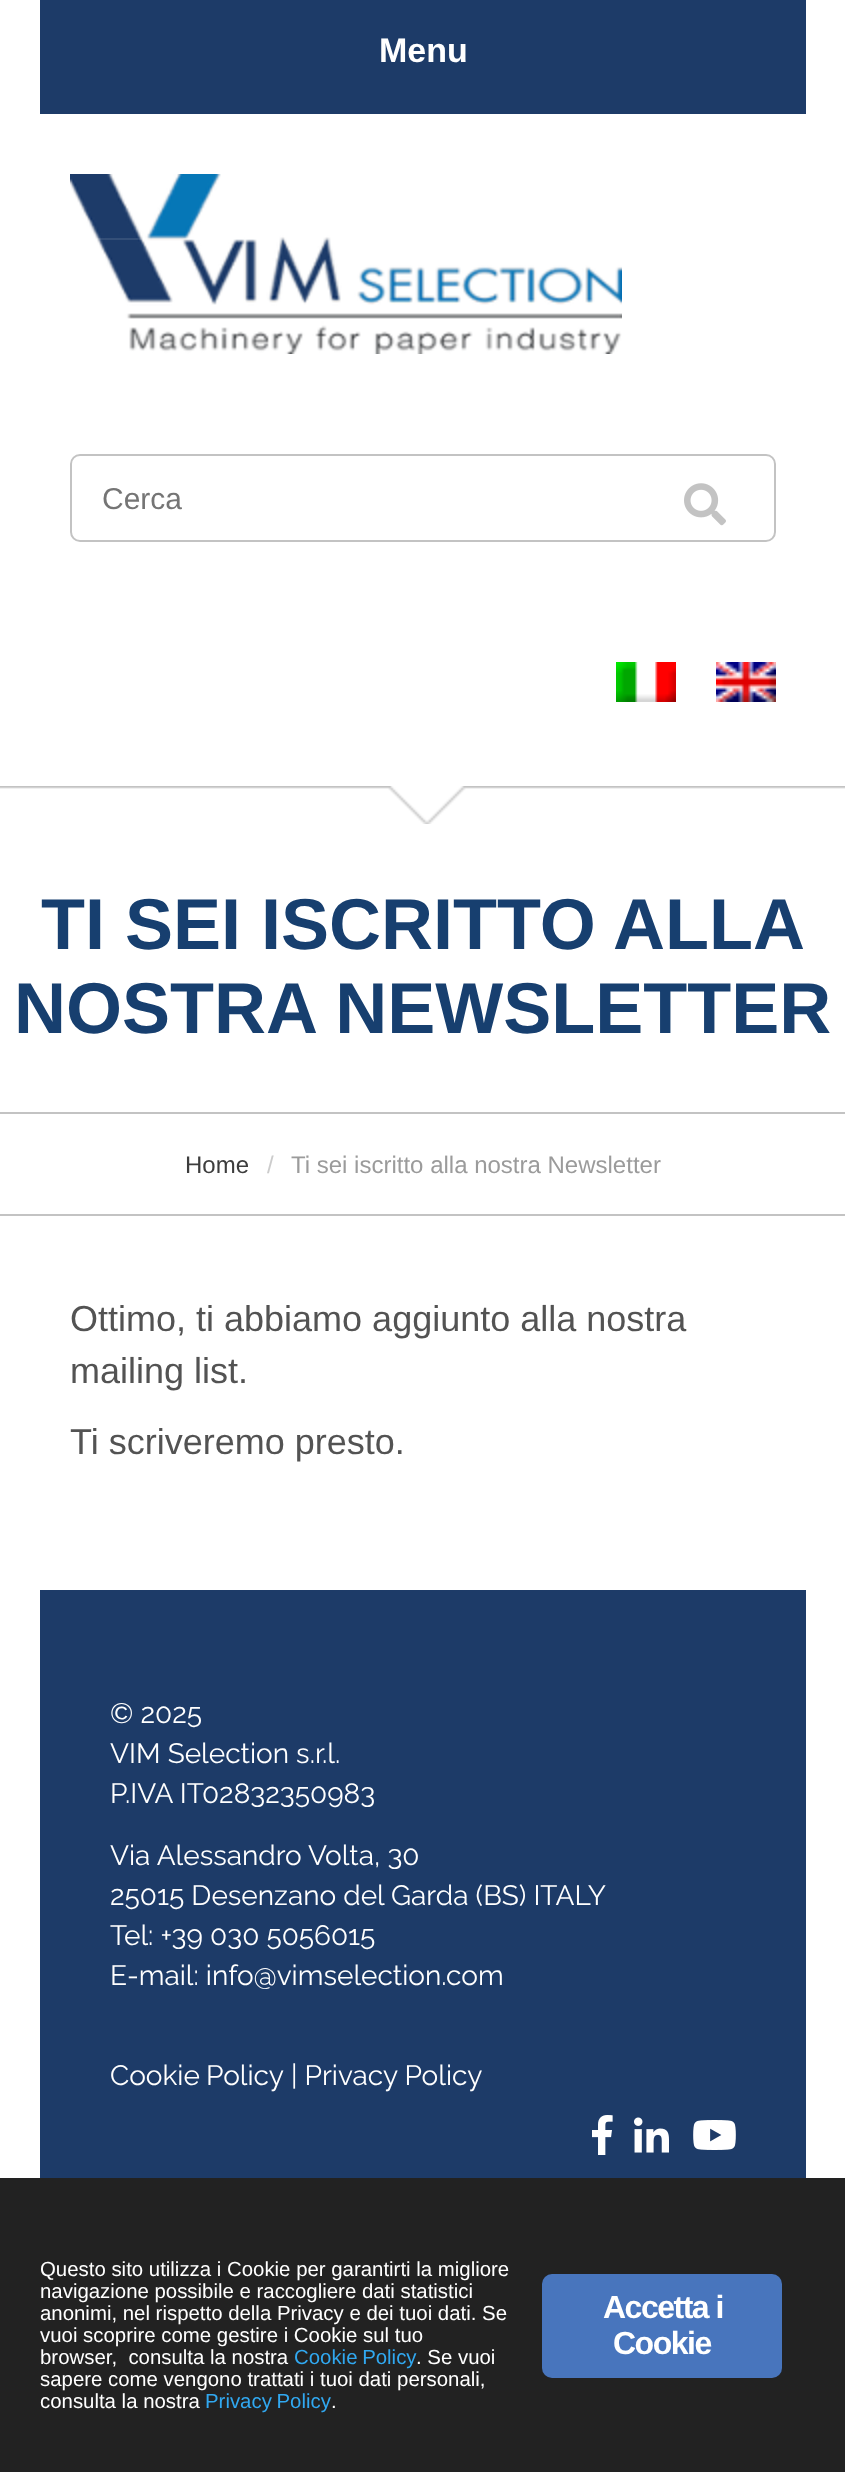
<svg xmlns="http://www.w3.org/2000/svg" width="845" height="2472">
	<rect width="100%" height="100%" fill="#FFFFFF" />
	<rect x="40" y="0" width="766" height="114" fill="#1D3B68" />
	<text x="379" y="62" font-family="Liberation Sans" font-size="34" font-weight="700" fill="#FFFFFF">Menu</text>
	<image x="70" y="174" width="552" height="180" href="assets/img1.png" />
	<rect x="97" y="238" width="232" height="2" fill="#FFFFFF" fill-opacity="0.1" />
	<rect x="71" y="455" width="704" height="86" rx="9" fill="none" stroke="#C3C3C3" stroke-width="2" />
	<text x="102" y="509" font-family="Liberation Sans" font-size="30" fill="#757575">Cerca</text>
	<image x="684" y="483" width="42" height="43" href="assets/img2.png" />
	<image x="616" y="662" width="60" height="40" href="assets/img3.png" />
	<image x="716" y="662" width="60" height="40" href="assets/img4.png" />
	<image x="0" y="786" width="845" height="38" href="assets/img5.png" />
	<g font-family="Liberation Sans" font-size="72" font-weight="700" fill="#173F6F">
		<text x="41" y="949">TI SEI ISCRITTO ALLA</text>
		<text x="14" y="1033">NOSTRA NEWSLETTER</text>
	</g>
	<rect x="0" y="1112" width="845" height="2" fill="#C3C3C3" />
	<rect x="0" y="1214" width="845" height="2" fill="#C3C3C3" />
	<text x="185" y="1173" font-family="Liberation Sans" font-size="24" fill="#3D3D3D">Home</text>
	<text x="267" y="1173" font-family="Liberation Sans" font-size="24" fill="#CCCCCC">/</text>
	<text x="291" y="1173" font-family="Liberation Sans" font-size="24" fill="#9B9B9B">Ti sei iscritto alla nostra Newsletter</text>
	<g font-family="Liberation Sans" font-size="36" fill="#535353">
		<text x="70" y="1331">Ottimo, ti abbiamo aggiunto alla nostra</text>
		<text x="70" y="1383">mailing list.</text>
		<text x="70" y="1454">Ti scriveremo presto.</text>
	</g>
	<rect x="40" y="1590" width="766" height="588" fill="#1D3B68" />
	<g font-family="Raleway" font-size="28" fill="#FFFFFF">
		<text x="110" y="1723">© 2025</text>
		<text x="110" y="1763">VIM Selection s.r.l.</text>
		<text x="110" y="1803">P.IVA IT02832350983</text>
		<text x="110" y="1865">Via Alessandro Volta, 30</text>
		<text x="110" y="1905">25015 Desenzano del Garda (BS) ITALY</text>
		<text x="110" y="1945">Tel: +39 030 5056015</text>
		<text x="110" y="1985">E-mail: info@vimselection.com</text>
		<text x="110" y="2085" word-spacing="-1">Cookie Policy</text>
		<text x="291" y="2085">| Privacy Policy</text>
	</g>
	<image x="592" y="2115" width="21" height="40" href="assets/img6.png" />
	<image x="634" y="2117" width="35" height="36" href="assets/img7.png" />
	<image x="693" y="2120" width="43" height="30" href="assets/img8.png" />
	<rect x="0" y="2178" width="845" height="294" fill="#222222" />
	<g font-family="Liberation Sans" font-size="20.4" fill="#FFFFFF">
		<text x="40" y="2276">Questo sito utilizza i Cookie per garantirti la migliore</text>
		<text x="40" y="2298">navigazione possibile e raccogliere dati statistici</text>
		<text x="40" y="2320">anonimi, nel rispetto della Privacy e dei tuoi dati. Se</text>
		<text x="40" y="2342">vuoi scoprire come gestire i Cookie sul tuo</text>
		<text x="40" y="2364" xml:space="preserve">browser,  consulta la nostra</text>
	</g>
	<text x="294" y="2364" word-spacing="-1" font-family="Liberation Sans" font-size="20.4" fill="#31A8F0">Cookie Policy</text>
	<g font-family="Liberation Sans" font-size="20.4" fill="#FFFFFF">
		<text x="416" y="2364">. Se vuoi</text>
		<text x="40" y="2386">sapere come vengono trattati i tuoi dati personali,</text>
		<text x="40" y="2408">consulta la nostra</text>
	</g>
	<text x="205" y="2408" word-spacing="-1" font-family="Liberation Sans" font-size="20.4" fill="#31A8F0">Privacy Policy</text>
	<text x="331" y="2408" font-family="Liberation Sans" font-size="20.4" fill="#FFFFFF">.</text>
	<rect x="542" y="2274" width="240" height="104" rx="10" fill="#4875BD" />
	<g font-family="Liberation Sans" font-size="32" font-weight="700" letter-spacing="-1.5" fill="#FFFFFF">
		<text x="603" y="2318">Accetta i</text>
		<text x="613" y="2354">Cookie</text>
	</g>
</svg>
